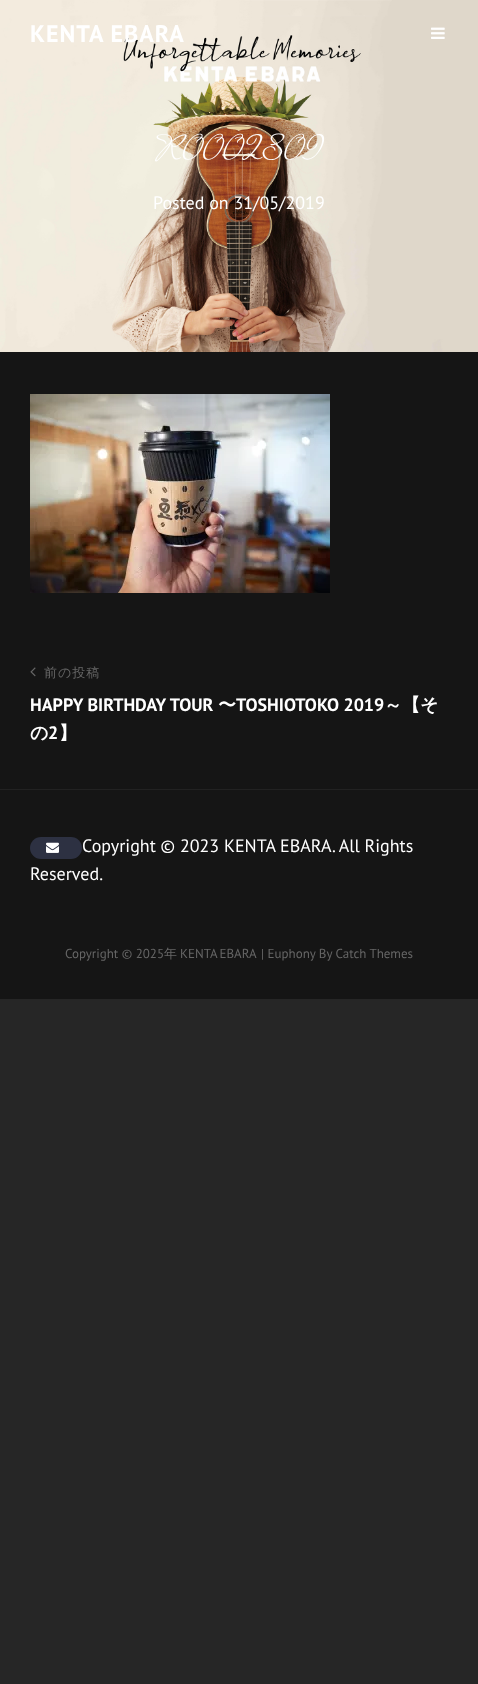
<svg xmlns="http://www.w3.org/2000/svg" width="478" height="1684">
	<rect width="100%" height="100%" fill="#262626" />
	<rect x="0" y="352" width="478" height="647" fill="#151515" />
	<image x="0" y="0" width="478" height="352" href="assets/img2.png" />
	<text x="30" y="42" font-family="PT Sans" font-size="24" font-weight="700" letter-spacing="1" fill="#FFFFFF">KENTA EBARA</text>
	<image x="431" y="27" width="14" height="12" href="assets/img1.png" />
	<text x="155" y="159" font-family="Mrs Saint Delafield" font-size="34" fill="#FFFFFF">R0002809</text>
	<text x="153" y="209" font-family="PT Sans" font-size="18" fill="#FFFFFF">Posted on 31/05/2019</text>
	<rect x="0" y="789" width="478" height="1" fill="#222222" />
	<image x="30" y="394" width="300" height="199" href="assets/img3.png" />
	<image x="30" y="667" width="6" height="10" href="assets/img4.png" />
	<text x="44" y="677" font-family="WenQuanYi Zen Hei" font-size="13" font-weight="500" letter-spacing="1" fill="#666666">前の投稿</text>
	<text x="30" y="711" font-family="PT Sans" font-size="18" font-weight="700" fill="#FFFFFF">HAPPY BIRTHDAY TOUR</text>
	<text x="218" y="711" font-family="WenQuanYi Zen Hei" font-size="18" font-weight="700" fill="#FFFFFF">〜</text>
	<text x="236" y="711" font-family="PT Sans" font-size="18" font-weight="700" fill="#FFFFFF">TOSHIOTOKO 2019</text>
	<g font-family="WenQuanYi Zen Hei" font-size="18" font-weight="700" fill="#FFFFFF">
		<text x="384" y="711">～【そ</text>
		<text x="30" y="739">の</text>
	</g>
	<text x="48" y="739" font-family="PT Sans" font-size="18" font-weight="700" fill="#FFFFFF">2</text>
	<text x="59" y="739" font-family="WenQuanYi Zen Hei" font-size="18" font-weight="700" fill="#FFFFFF">】</text>
	<rect x="30" y="837" width="52" height="22" rx="11" fill="#2D3142" />
	<image x="46" y="842" width="13" height="11" href="assets/img5.png" />
	<g font-family="PT Sans" font-size="18" fill="#FFFFFF">
		<text x="82" y="852">Copyright © 2023 KENTA EBARA. All Rights</text>
		<text x="30" y="880">Reserved.</text>
	</g>
	<text x="65" y="958" font-family="PT Sans" font-size="13" fill="#666666">Copyright © 2025</text>
	<text x="164" y="958" font-family="WenQuanYi Zen Hei" font-size="13" font-weight="500" fill="#666666">年</text>
	<g font-family="PT Sans" font-size="13" fill="#666666">
		<text x="180" y="958" word-spacing="-1">KENTA EBARA</text>
		<text x="261" y="958">| Euphony By Catch Themes</text>
	</g>
</svg>
